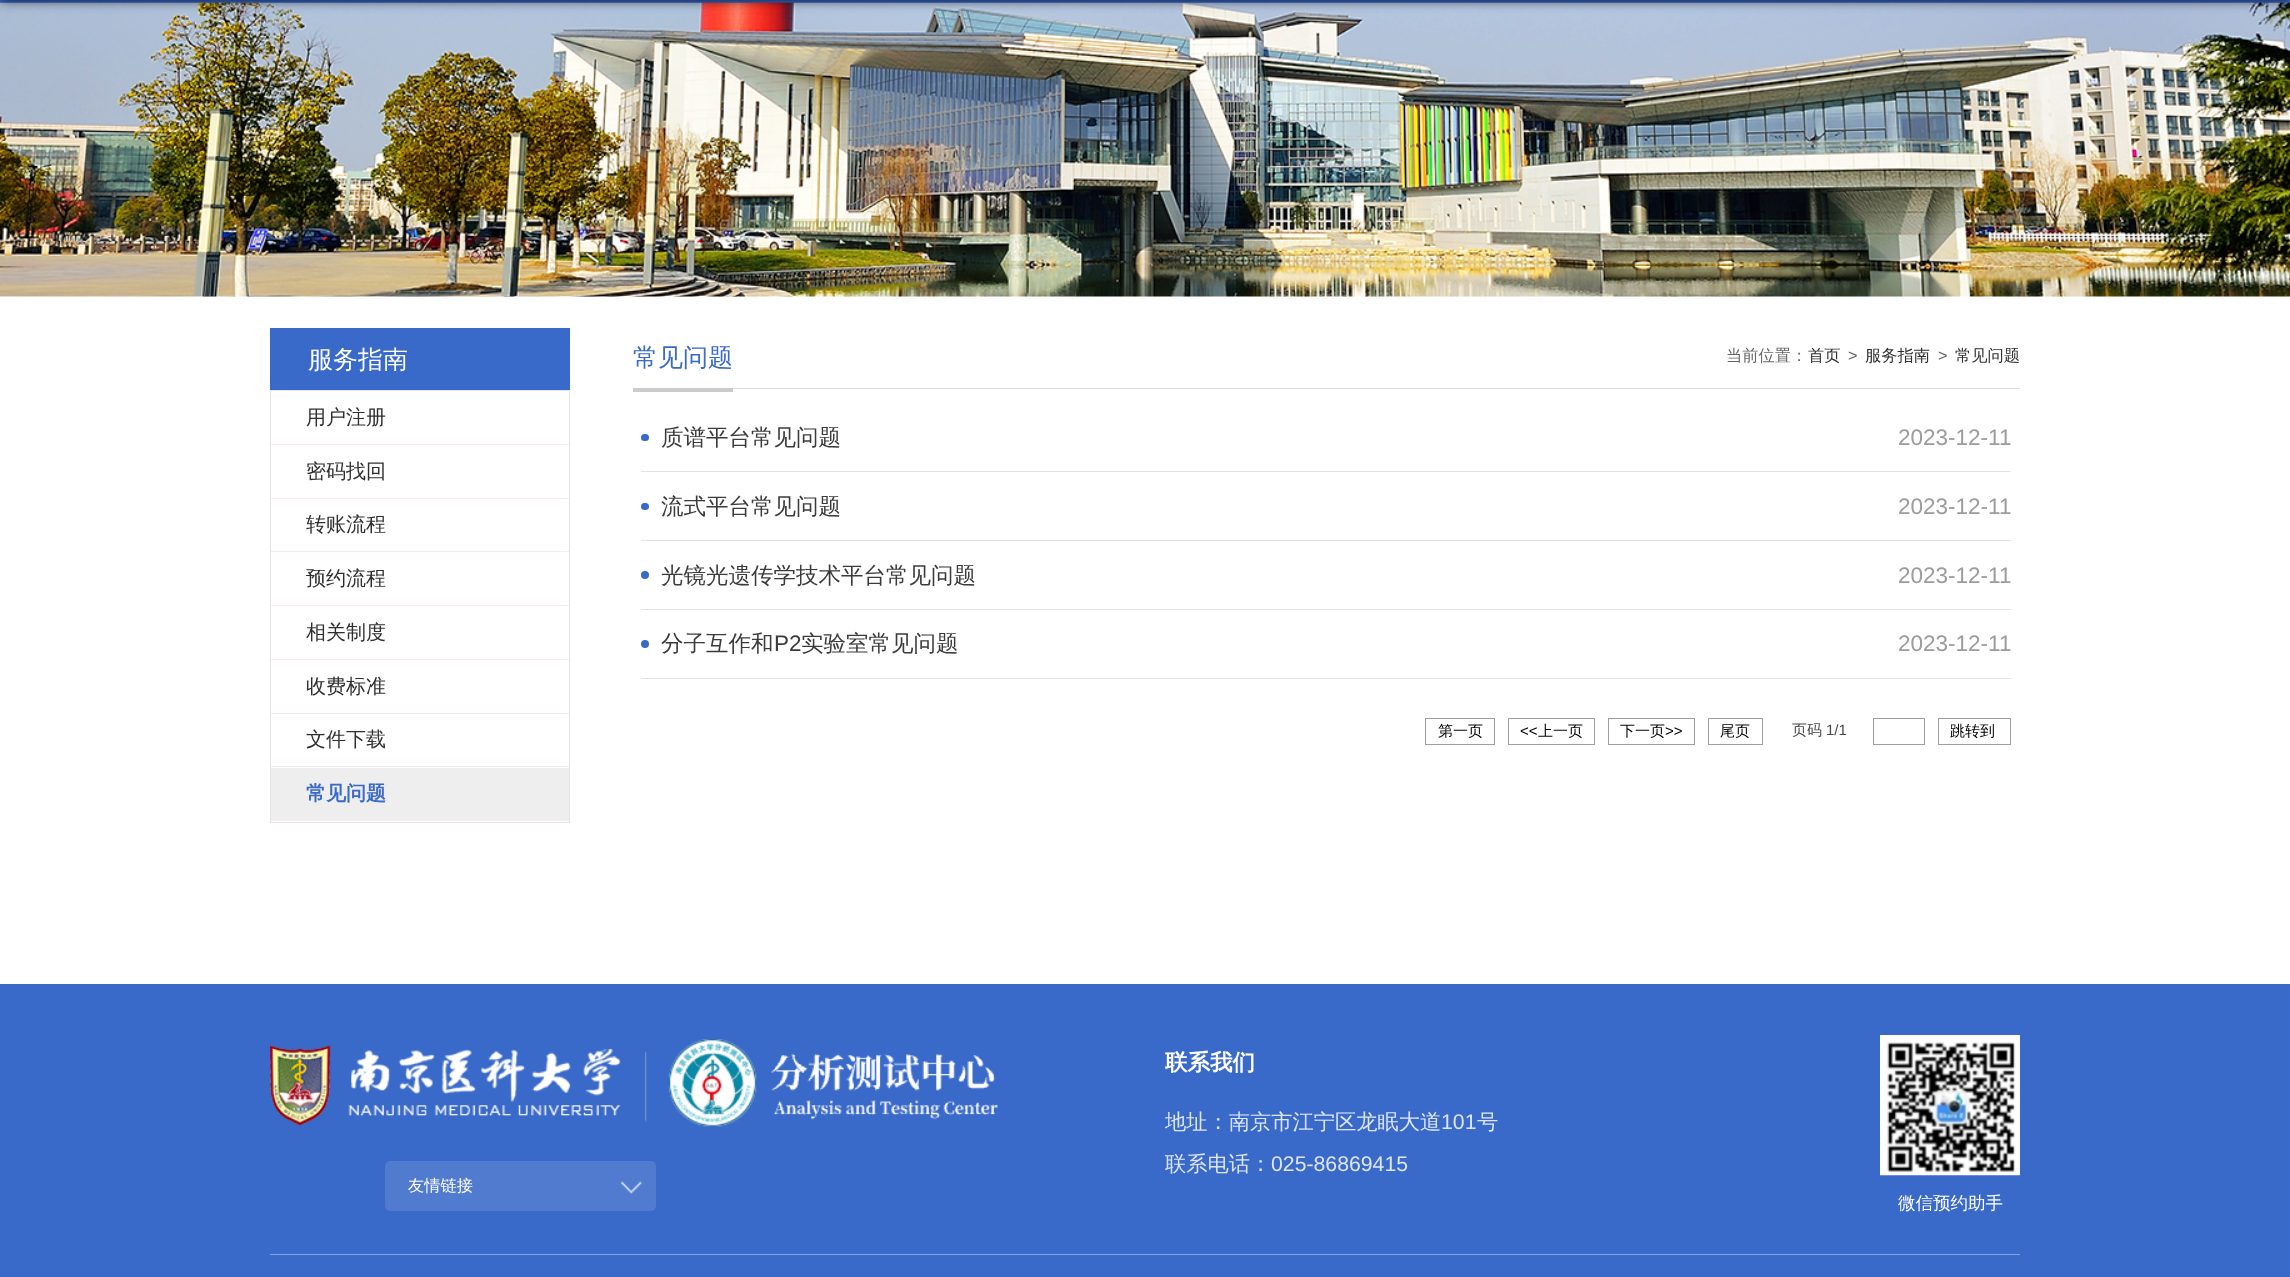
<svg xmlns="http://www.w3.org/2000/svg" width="2290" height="1277">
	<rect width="100%" height="100%" fill="#FFFFFF" />
	<rect x="0" y="0" width="2290" height="3" fill="#3969C9" />
	<image x="0" y="2" width="2290" height="295" href="assets/img1.png" />
	<rect x="0" y="-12" width="2290" height="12" fill="#000000" fill-opacity="0.8" filter="blur(6px)" />
	<rect x="270" y="328" width="300" height="62" fill="#3969C9" />
	<text x="308" y="368" font-family="WenQuanYi Zen Hei" font-size="25" font-weight="500" fill="#FFFFFF">服务指南</text>
	<rect x="270.5" y="390.5" width="299" height="432" fill="none" stroke="#E4E4E4" />
	<rect x="271" y="444" width="298" height="1" fill="#F6EAEA" />
	<text x="306" y="424" font-family="WenQuanYi Zen Hei" font-size="20" font-weight="500" fill="#2F2F2F">用户注册</text>
	<rect x="271" y="498" width="298" height="1" fill="#F6EAEA" />
	<text x="306" y="478" font-family="WenQuanYi Zen Hei" font-size="20" font-weight="500" fill="#2F2F2F">密码找回</text>
	<rect x="271" y="551" width="298" height="1" fill="#F6EAEA" />
	<text x="306" y="531" font-family="WenQuanYi Zen Hei" font-size="20" font-weight="500" fill="#2F2F2F">转账流程</text>
	<rect x="271" y="605" width="298" height="1" fill="#F6EAEA" />
	<text x="306" y="585" font-family="WenQuanYi Zen Hei" font-size="20" font-weight="500" fill="#2F2F2F">预约流程</text>
	<rect x="271" y="659" width="298" height="1" fill="#F6EAEA" />
	<text x="306" y="639" font-family="WenQuanYi Zen Hei" font-size="20" font-weight="500" fill="#2F2F2F">相关制度</text>
	<rect x="271" y="713" width="298" height="1" fill="#F6EAEA" />
	<text x="306" y="693" font-family="WenQuanYi Zen Hei" font-size="20" font-weight="500" fill="#2F2F2F">收费标准</text>
	<rect x="271" y="766" width="298" height="1" fill="#F6EAEA" />
	<text x="306" y="746" font-family="WenQuanYi Zen Hei" font-size="20" font-weight="500" fill="#2F2F2F">文件下载</text>
	<rect x="271" y="768" width="298" height="52" fill="#EEEEEE" />
	<rect x="271" y="820" width="298" height="1" fill="#F6EAEA" />
	<text x="306" y="800" font-family="WenQuanYi Zen Hei" font-size="20" font-weight="700" fill="#3969C9">常见问题</text>
	<rect x="733" y="388" width="1287" height="1" fill="#DBDBDB" />
	<rect x="633" y="388" width="100" height="4" fill="#CBCBCB" />
	<text x="633" y="366" font-family="WenQuanYi Zen Hei" font-size="25" font-weight="500" fill="#3969C9">常见问题</text>
	<text x="1726" y="361" font-family="WenQuanYi Zen Hei" font-size="16.25" font-weight="500" fill="#666666">当前位置：</text>
	<text x="1808" y="361" font-family="WenQuanYi Zen Hei" font-size="16.25" font-weight="500" fill="#2F2F2F">首页</text>
	<text x="1848" y="361" font-family="Liberation Sans" font-size="16.25" fill="#666666">&gt;</text>
	<text x="1865" y="361" font-family="WenQuanYi Zen Hei" font-size="16.25" font-weight="500" fill="#2F2F2F">服务指南</text>
	<text x="1938" y="361" font-family="Liberation Sans" font-size="16.25" fill="#666666">&gt;</text>
	<text x="1955" y="361" font-family="WenQuanYi Zen Hei" font-size="16.25" font-weight="500" fill="#2F2F2F">常见问题</text>
	<rect x="641" y="471" width="1370" height="1" fill="#E3E3E3" />
	<rect x="641" y="434" width="8" height="7" rx="3.5" fill="#3969C9" />
	<text x="661" y="445" font-family="WenQuanYi Zen Hei" font-size="22.5" font-weight="500" fill="#3B3B3B">质谱平台常见问题</text>
	<text x="1898" y="445" font-family="Liberation Sans" font-size="22.5" fill="#9C9C9C">2023-12-11</text>
	<rect x="641" y="540" width="1370" height="1" fill="#E3E3E3" />
	<rect x="641" y="503" width="8" height="7" rx="3.5" fill="#3969C9" />
	<text x="661" y="514" font-family="WenQuanYi Zen Hei" font-size="22.5" font-weight="500" fill="#3B3B3B">流式平台常见问题</text>
	<text x="1898" y="514" font-family="Liberation Sans" font-size="22.5" fill="#9C9C9C">2023-12-11</text>
	<rect x="641" y="609" width="1370" height="1" fill="#E3E3E3" />
	<circle cx="645" cy="575" r="4" fill="#3969C9" />
	<text x="661" y="583" font-family="WenQuanYi Zen Hei" font-size="22.5" font-weight="500" fill="#3B3B3B">光镜光遗传学技术平台常见问题</text>
	<text x="1898" y="583" font-family="Liberation Sans" font-size="22.5" fill="#9C9C9C">2023-12-11</text>
	<rect x="641" y="678" width="1370" height="1" fill="#E3E3E3" />
	<circle cx="645" cy="644" r="4" fill="#3969C9" />
	<text x="661" y="651" font-family="WenQuanYi Zen Hei" font-size="22.5" font-weight="500" fill="#3B3B3B">分子互作和</text>
	<text x="774" y="651" font-family="Liberation Sans" font-size="22.5" fill="#3B3B3B">P2</text>
	<text x="801" y="651" font-family="WenQuanYi Zen Hei" font-size="22.5" font-weight="500" fill="#3B3B3B">实验室常见问题</text>
	<text x="1898" y="651" font-family="Liberation Sans" font-size="22.5" fill="#9C9C9C">2023-12-11</text>
	<rect x="1425.5" y="718.5" width="69" height="26" fill="none" stroke="#9E9E9E" />
	<text x="1438" y="736" font-family="WenQuanYi Zen Hei" font-size="15" font-weight="500" fill="#000000">第一页</text>
	<rect x="1508.5" y="718.5" width="86" height="26" fill="none" stroke="#9E9E9E" />
	<text x="1520" y="736" font-family="Liberation Sans" font-size="15" fill="#000000">&lt;&lt;</text>
	<text x="1538" y="736" font-family="WenQuanYi Zen Hei" font-size="15" font-weight="500" fill="#000000">上一页</text>
	<rect x="1608.5" y="718.5" width="86" height="26" fill="none" stroke="#9E9E9E" />
	<text x="1620" y="736" font-family="WenQuanYi Zen Hei" font-size="15" font-weight="500" fill="#000000">下一页</text>
	<text x="1665" y="736" font-family="Liberation Sans" font-size="15" fill="#000000">&gt;&gt;</text>
	<rect x="1708.5" y="718.5" width="54" height="26" fill="none" stroke="#9E9E9E" />
	<text x="1720" y="736" font-family="WenQuanYi Zen Hei" font-size="15" font-weight="500" fill="#000000">尾页</text>
	<text x="1792" y="735" font-family="WenQuanYi Zen Hei" font-size="15" font-weight="500" fill="#494949">页码</text>
	<text x="1826" y="735" font-family="Liberation Sans" font-size="15" fill="#494949">1/1</text>
	<rect x="1873.5" y="718.5" width="51" height="26" fill="none" stroke="#9E9E9E" />
	<rect x="1938.5" y="718.5" width="72" height="26" fill="none" stroke="#9E9E9E" />
	<text x="1950" y="736" font-family="WenQuanYi Zen Hei" font-size="15" font-weight="500" fill="#000000">跳转到</text>
	<rect x="0" y="984" width="2290" height="293" fill="#3969C9" />
	<text x="1165" y="1070" font-family="WenQuanYi Zen Hei" font-size="22.5" font-weight="700" fill="#FFFFFF">联系我们</text>
	<text x="1165" y="1129" font-family="WenQuanYi Zen Hei" font-size="21.25" font-weight="500" fill="#DDE6F6">地址：南京市江宁区龙眠大道</text>
	<text x="1441" y="1129" font-family="Liberation Sans" font-size="21.25" fill="#DDE6F6">101</text>
	<g font-family="WenQuanYi Zen Hei" font-size="21.25" font-weight="500" fill="#DDE6F6">
		<text x="1477" y="1129">号</text>
		<text x="1165" y="1171">联系电话：</text>
	</g>
	<text x="1271" y="1171" font-family="Liberation Sans" font-size="21.25" fill="#DDE6F6">025-86869415</text>
	<image x="270" y="1039" width="728" height="88" href="assets/img2.png" />
	<rect x="385" y="1161" width="271" height="50" rx="5" fill="#517BCF" />
	<image x="621" y="1181" width="21" height="13" href="assets/img3.png" />
	<text x="408" y="1191" font-family="WenQuanYi Zen Hei" font-size="16.25" font-weight="500" fill="#FFFFFF">友情链接</text>
	<rect x="1880" y="1035" width="140" height="7" fill="#FFFFFF" />
	<image x="1880" y="1042" width="140" height="134" href="assets/img4.png" />
	<text x="1898" y="1209" font-family="WenQuanYi Zen Hei" font-size="17.5" font-weight="500" fill="#FFFFFF">微信预约助手</text>
	<rect x="270" y="1254" width="1750" height="1" fill="#84A2DE" />
</svg>
